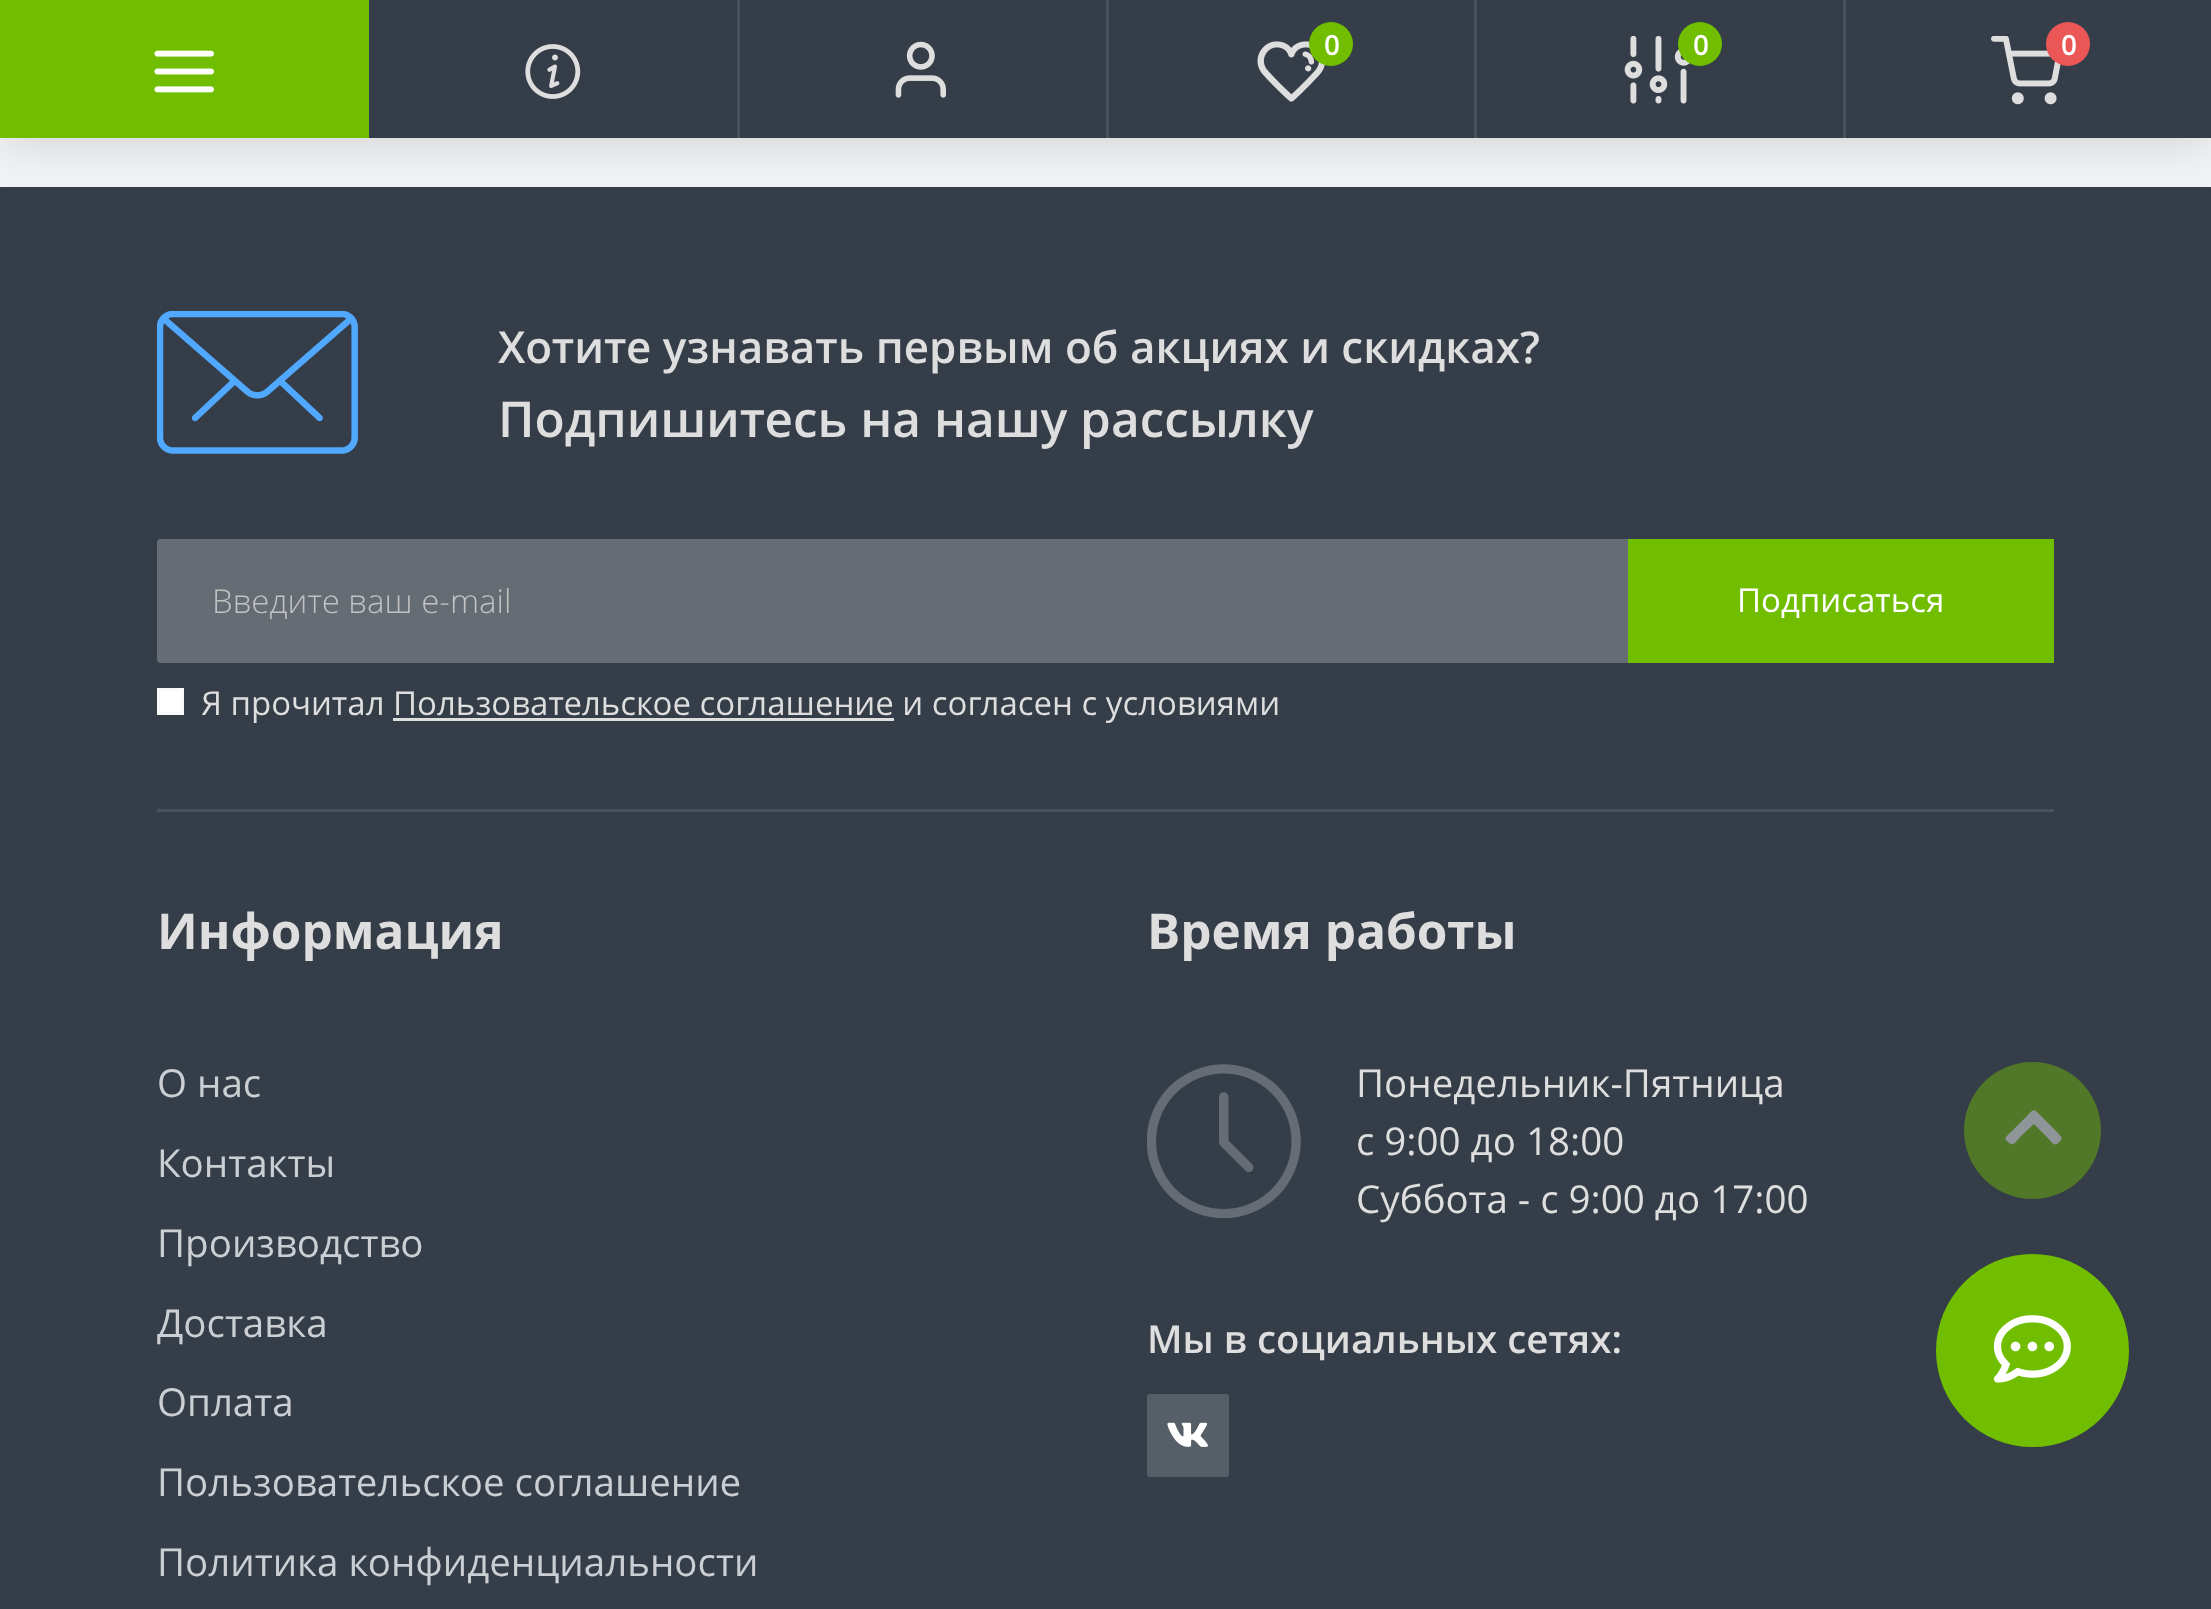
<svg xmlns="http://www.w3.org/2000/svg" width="2211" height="1609">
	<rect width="100%" height="100%" fill="#F2F3F5" />
	<rect x="0" y="187" width="2211" height="1422" fill="#353E48" />
	<rect x="0" y="11" width="2211" height="138" fill="#000000" fill-opacity="0.1" filter="blur(20.5px)" />
	<rect x="369" y="0" width="1842" height="138" fill="#353E48" />
	<rect x="0" y="0" width="369" height="138" fill="#71BE00" />
	<image x="154" y="50" width="60" height="43" href="assets/img1.png" />
	<image x="525" y="44" width="56" height="55" href="assets/img2.png" />
	<rect x="737" y="0" width="3" height="138" fill="#49515A" />
	<image x="895" y="41" width="51" height="57" href="assets/img3.png" />
	<rect x="1106" y="0" width="3" height="138" fill="#49515A" />
	<image x="1257" y="41" width="68" height="61" href="assets/img4.png" />
	<circle cx="1331" cy="44" r="22" fill="#71BE00" />
	<text x="1324" y="55" font-family="Open Sans" font-size="28" font-weight="600" fill="#FFFFFF">0</text>
	<rect x="1474" y="0" width="3" height="138" fill="#49515A" />
	<image x="1624" y="36" width="66" height="68" href="assets/img5.png" />
	<circle cx="1700" cy="44" r="22" fill="#71BE00" />
	<text x="1693" y="55" font-family="Open Sans" font-size="28" font-weight="600" fill="#FFFFFF">0</text>
	<rect x="1843" y="0" width="3" height="138" fill="#49515A" />
	<image x="1991" y="36" width="70" height="69" href="assets/img6.png" />
	<circle cx="2068" cy="44" r="22" fill="#EB5757" />
	<text x="2061" y="55" font-family="Open Sans" font-size="28" font-weight="600" fill="#FFFFFF">0</text>
	<image x="157" y="311" width="201" height="143" href="assets/img7.png" />
	<text x="498" y="363" font-family="Open Sans" font-size="44" font-weight="600" fill="#DEDEDE">Хотите узнавать первым об акциях и скидках?</text>
	<text x="498" y="437" font-family="Open Sans" font-size="49.5" font-weight="600" fill="#DEDEDE">Подпишитесь на нашу рассылку</text>
	<path d="M160 539H1628V663H160C158.5 663 157 661.5 157 660V542C157 540.5 158.5 539 160 539Z" fill="#656C73" />
	<text x="212" y="613" font-family="Open Sans" font-size="33" font-weight="300" fill="#C2C2C2">Введите ваш e-mail</text>
	<rect x="1628" y="539" width="426" height="124" fill="#71BE00" />
	<text x="1737" y="612" font-family="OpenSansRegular" font-size="33" fill="#FFFFFF">Подписаться</text>
	<rect x="158.5" y="689.5" width="24" height="24" fill="#FFFFFF" stroke="#F9F9F9" stroke-width="3" />
	<text x="201" y="715" font-family="OpenSansRegular" font-size="33" fill="#DEDEDE">Я прочитал Пользовательское соглашение и согласен с условиями</text>
	<rect x="393" y="718" width="501" height="3" fill="#DEDEDE" />
	<rect x="157" y="809" width="1897" height="3" fill="#49515A" />
	<text x="157" y="949" font-family="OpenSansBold" font-size="49.5" font-weight="700" fill="#DEDEDE">Информация</text>
	<g font-family="OpenSansRegular" font-size="38.5" fill="#CBCFD4">
		<text x="157" y="1097">О нас</text>
		<text x="157" y="1177">Контакты</text>
		<text x="157" y="1257">Производство</text>
		<text x="157" y="1337">Доставка</text>
		<text x="157" y="1416">Оплата</text>
		<text x="157" y="1496">Пользовательское соглашение</text>
		<text x="157" y="1576">Политика конфиденциальности</text>
	</g>
	<text x="1147" y="949" font-family="OpenSansBold" font-size="49.5" font-weight="700" fill="#DEDEDE">Время работы</text>
	<image x="1147" y="1064" width="154" height="154" href="assets/img8.png" />
	<g font-family="OpenSansRegular" font-size="38.5" fill="#DEDEDE">
		<text x="1356" y="1097">Понедельник-Пятница</text>
		<text x="1356" y="1155">с 9:00 до 18:00</text>
		<text x="1356" y="1213">Суббота - с 9:00 до 17:00</text>
	</g>
	<text x="1147" y="1353" font-family="Open Sans" font-size="38.5" font-weight="600" fill="#DEDEDE">Мы в социальных сетях:</text>
	<rect x="1147" y="1394" width="82" height="83" rx="3" fill="#565E67" />
	<image x="1167" y="1422" width="41" height="25" href="assets/img9.png" />
	<circle cx="2032.5" cy="1130.5" r="68.5" fill="#507828" />
	<path d="M2036 1111L2057 1132C2061 1137 2064 1138 2059 1142C2054 1148 2052 1142 2047 1137L2034 1124L2020 1137C2018 1139 2014 1146 2011 1144L2008 1142C2003 1138 2006 1137 2011 1132L2027 1116C2029 1114 2033 1108 2036 1111Z" fill="#90959A" />
	<circle cx="2032.5" cy="1350.5" r="96.5" fill="#71BE00" />
	<image x="1993" y="1315" width="78" height="68" href="assets/img10.png" />
</svg>
